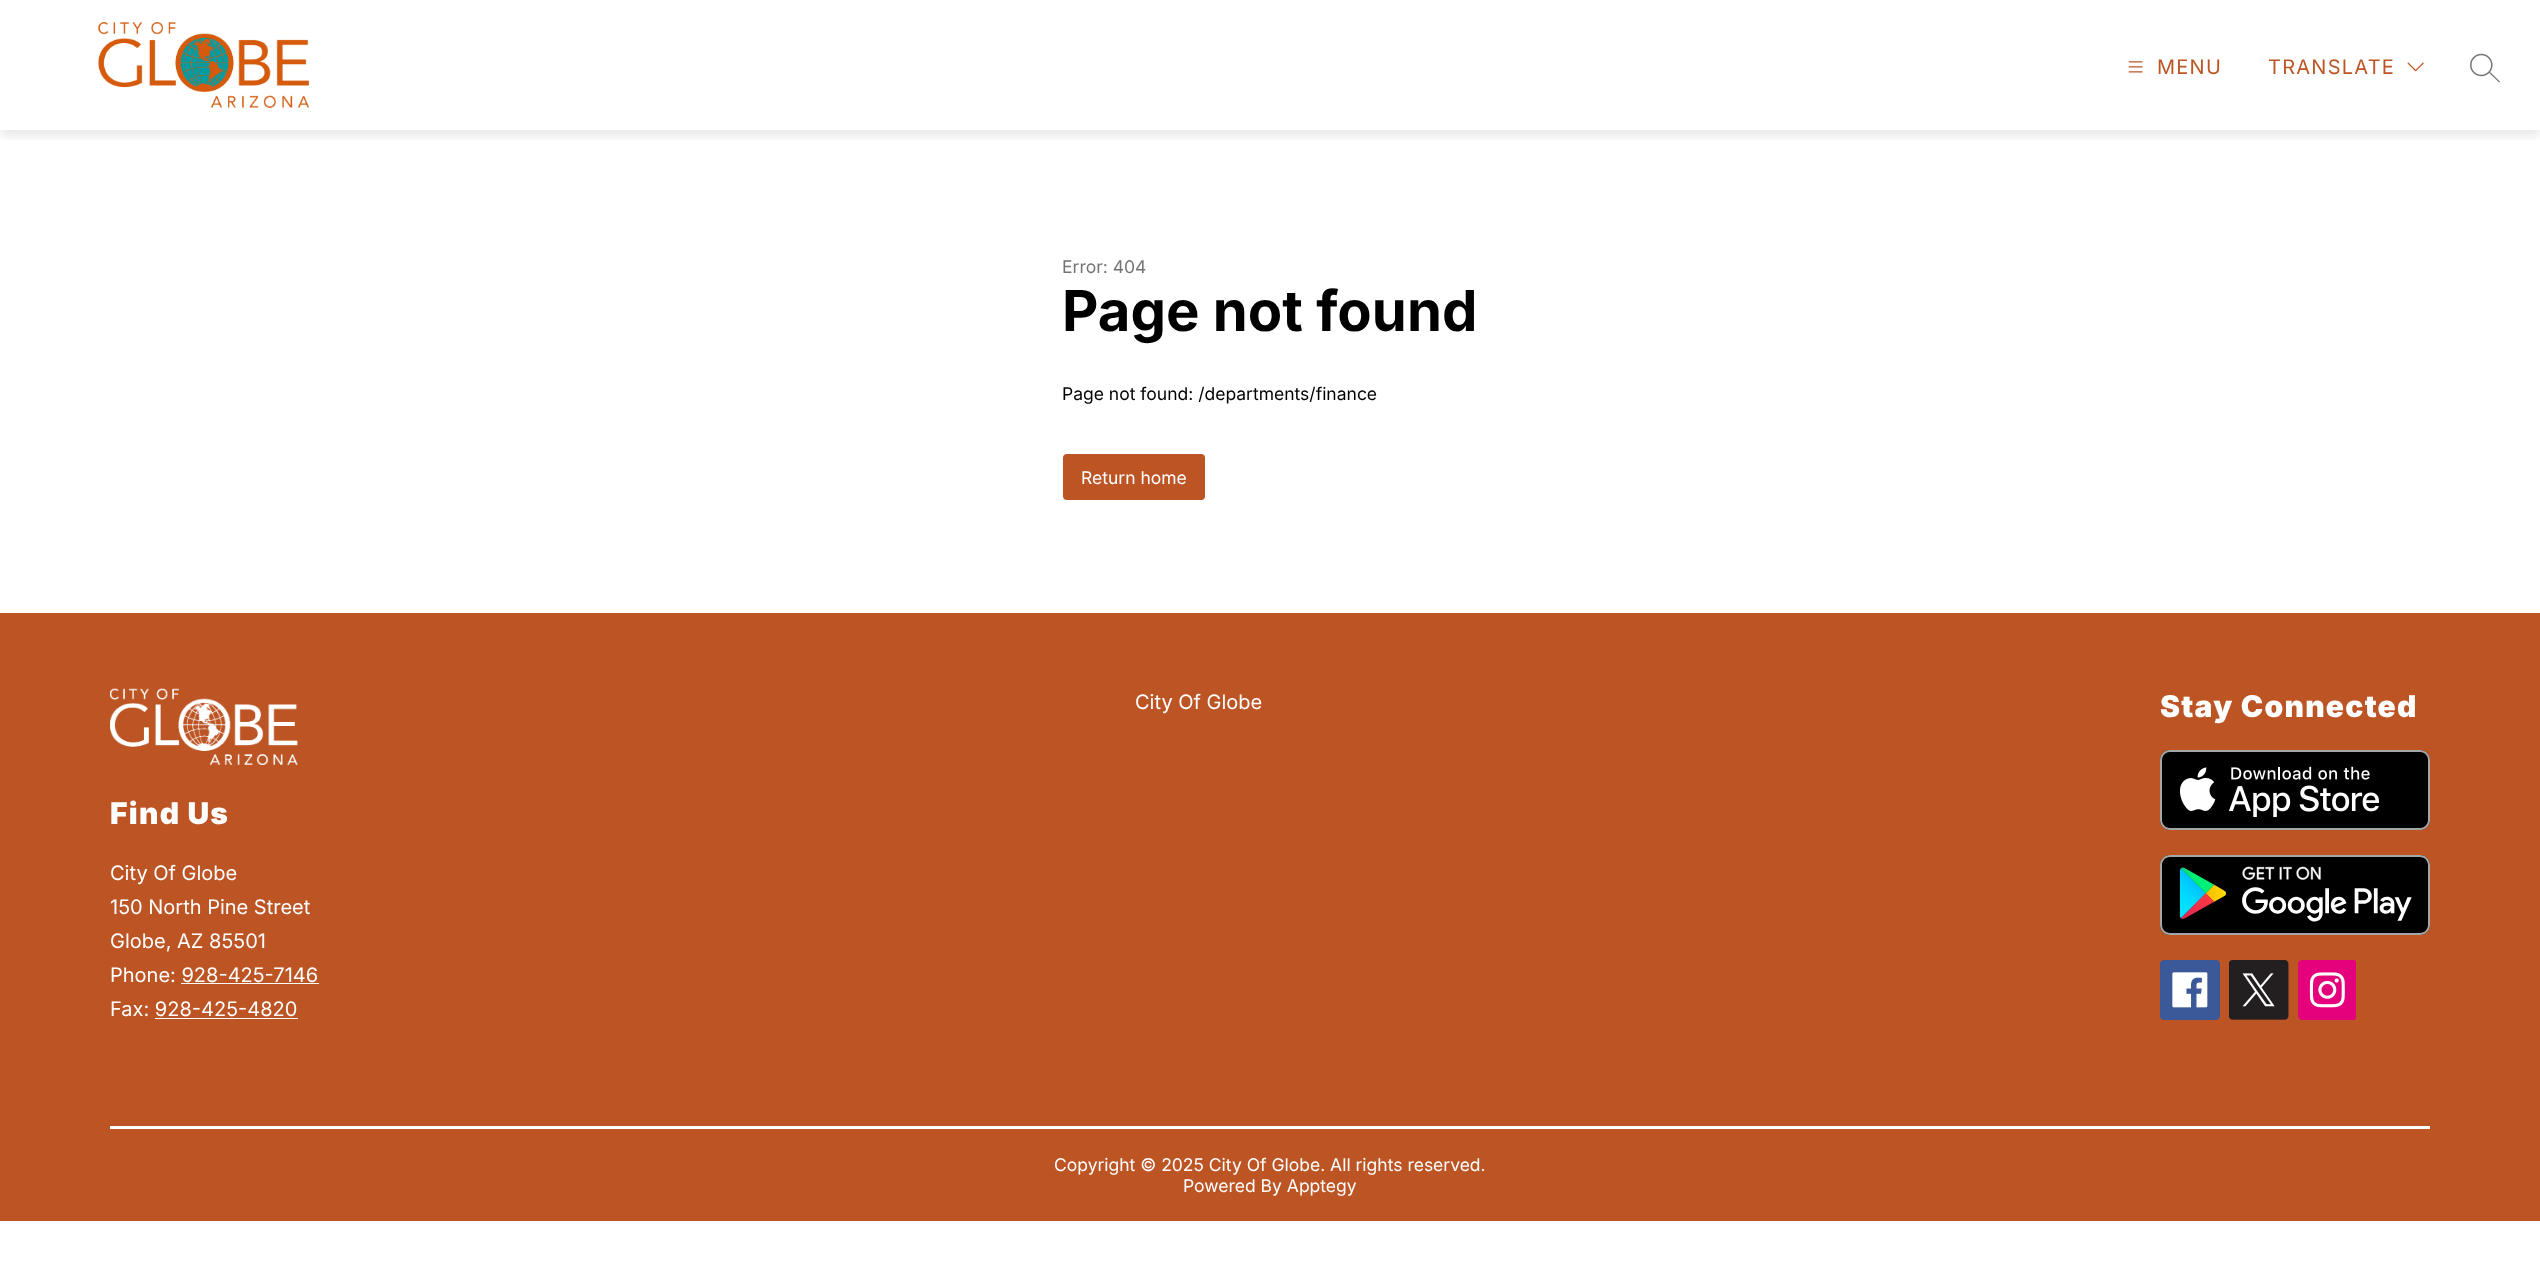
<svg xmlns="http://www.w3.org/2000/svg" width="2540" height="1282">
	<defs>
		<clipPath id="clip1"><rect x="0" y="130" width="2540" height="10" /></clipPath>
	</defs>
	<rect width="100%" height="100%" fill="#FFFFFF" />
	<g clip-path="url(#clip1)">
		<rect x="0" y="5" width="2540" height="130" fill="#000000" fill-opacity="0.1" filter="blur(6px)" />
	</g>
	<image x="97" y="22" width="212" height="86" href="assets/img1.png" />
	<image x="2128" y="61" width="15" height="12" href="assets/img2.png" />
	<g font-family="Inter" font-size="20" letter-spacing="1.25" fill="#BC5424">
		<text x="2157" y="74">MENU</text>
		<text x="2268" y="74">TRANSLATE</text>
	</g>
	<image x="2407" y="62" width="17" height="10" href="assets/img3.png" />
	<image x="2470" y="53" width="30" height="30" href="assets/img4.png" />
	<text x="1062" y="273" font-family="Inter" font-size="17.5" fill="#747474">Error: 404</text>
	<text x="1062" y="331" font-family="Inter" font-size="56.25" font-weight="700" fill="#000000">Page not found</text>
	<text x="1062" y="400" font-family="Inter" font-size="17.5" fill="#000000">Page not found: /departments/finance</text>
	<rect x="1063" y="454" width="142" height="46" rx="4" fill="#BC5424" />
	<text x="1081" y="484" font-family="Inter" font-size="17.5" fill="#FFFFFF">Return home</text>
	<rect x="0" y="613" width="2540" height="608" fill="#BC5424" />
	<text x="1135" y="709" font-family="Inter" font-size="20" fill="#FFFFFF">City Of Globe</text>
	<text x="2160" y="717" font-family="Inter" font-size="30" font-weight="900" letter-spacing="1.25" fill="#FFFFFF">Stay Connected</text>
	<image x="2160" y="750" width="270" height="80" href="assets/img5.png" />
	<image x="2160" y="855" width="270" height="80" href="assets/img6.png" />
	<image x="2160" y="960" width="60" height="60" href="assets/img7.png" />
	<image x="2229" y="960" width="60" height="60" href="assets/img8.png" />
	<image x="2298" y="960" width="58" height="60" href="assets/img9.png" />
	<image x="110" y="688" width="188" height="77" href="assets/img10.png" />
	<text x="110" y="824" font-family="Inter" font-size="30" font-weight="900" letter-spacing="1.25" fill="#FFFFFF">Find Us</text>
	<g font-family="Inter" font-size="20" fill="#FFFFFF">
		<text x="110" y="880">City Of Globe</text>
		<text x="110" y="914">150 North Pine Street</text>
		<text x="110" y="948">Globe, AZ 85501</text>
		<text x="110" y="982">Phone: 928-425-7146</text>
	</g>
	<rect x="181" y="983" width="138" height="1" fill="#FFFFFF" />
	<text x="110" y="1016" font-family="Inter" font-size="20" fill="#FFFFFF">Fax: 928-425-4820</text>
	<rect x="155" y="1018" width="143" height="1" fill="#FFFFFF" />
	<rect x="110" y="1126" width="2320" height="3" fill="#FFFFFF" />
	<g font-family="Inter" font-size="17.5" fill="#FFFFFF">
		<text x="1054" y="1171">Copyright © 2025 City Of Globe. All rights reserved.</text>
		<text x="1183" y="1192">Powered By Apptegy</text>
	</g>
</svg>
